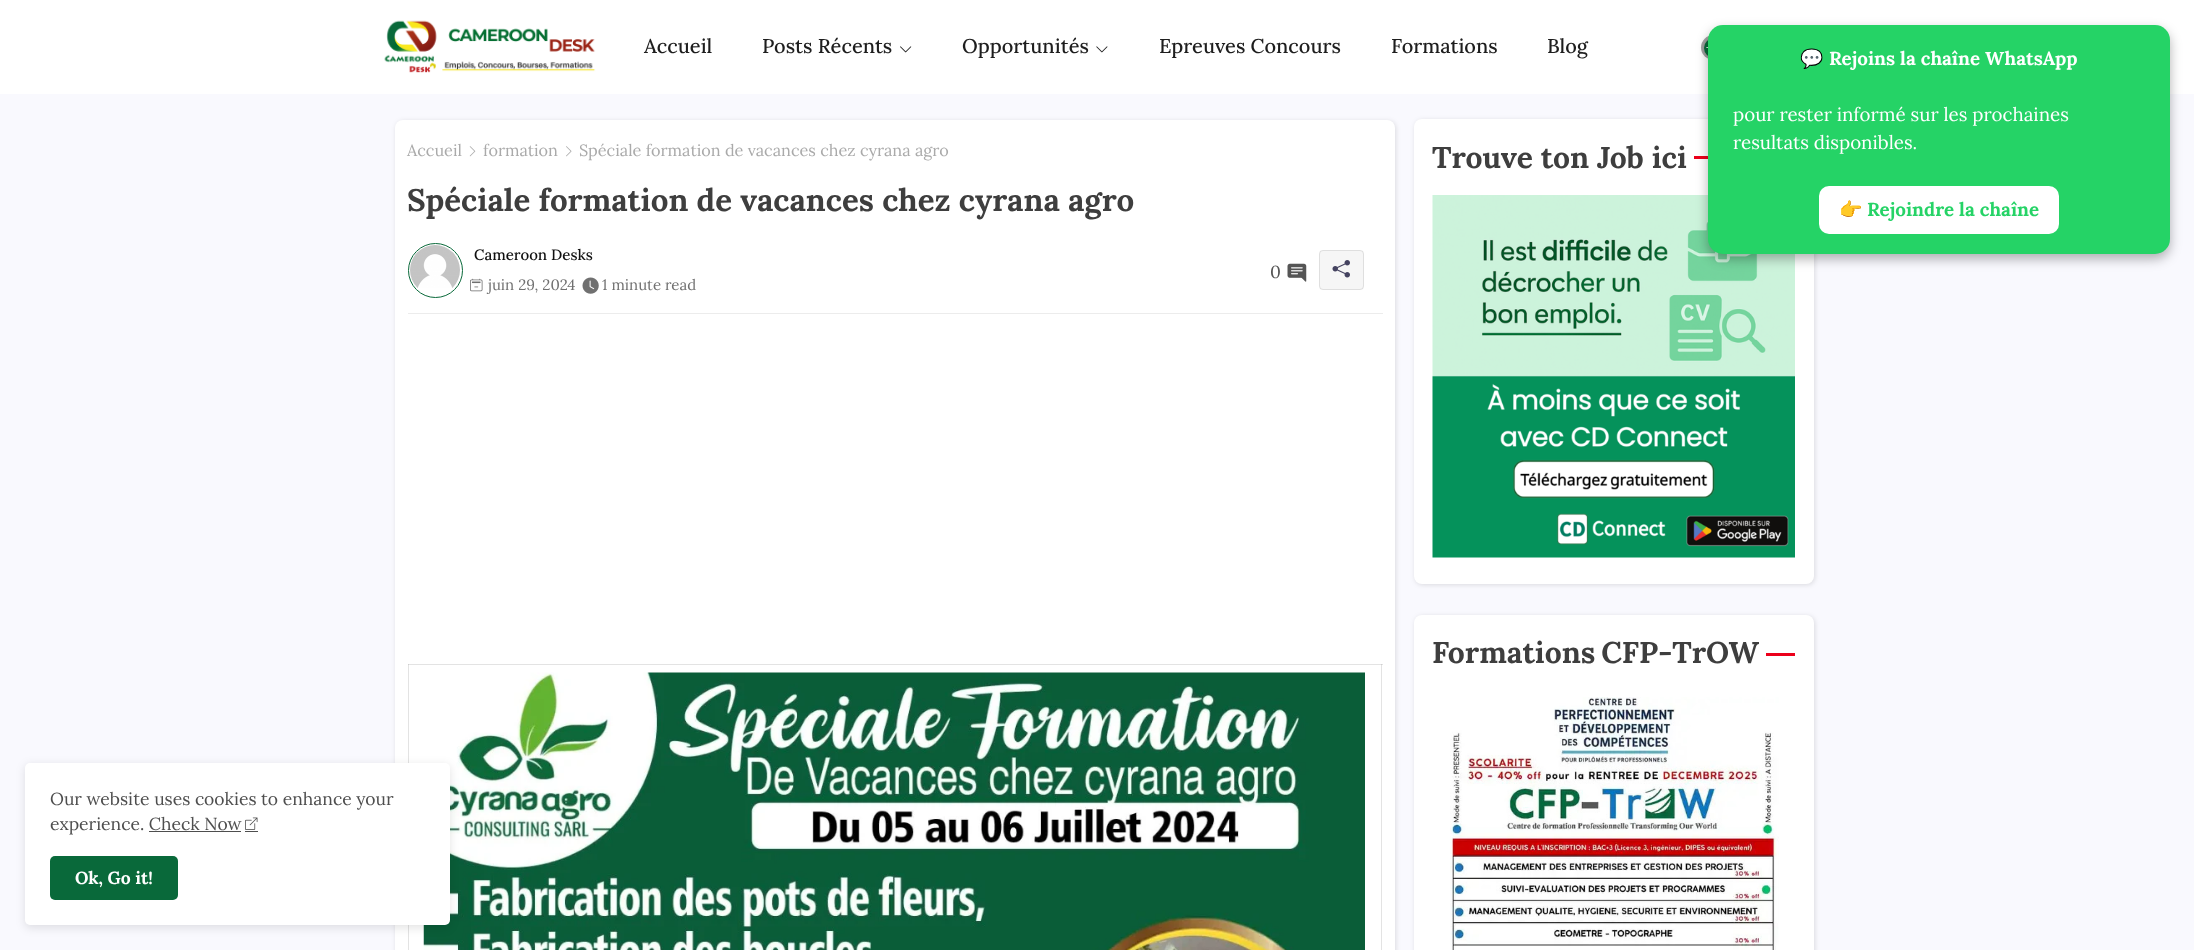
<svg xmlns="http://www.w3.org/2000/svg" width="2194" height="950">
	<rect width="100%" height="100%" fill="#F9F9FE" />
	<rect x="0" y="0" width="2194" height="94" fill="#FFFFFF" />
	<image x="384" y="20" width="212" height="53" href="assets/img1.png" />
	<g font-family="Lora" font-size="20" font-weight="500" fill="#1E1E1E">
		<text x="644" y="53">Accueil</text>
		<text x="762" y="53">Posts Récents</text>
	</g>
	<image x="900" y="46" width="12" height="7" href="assets/img2.png" />
	<text x="962" y="53" font-family="Lora" font-size="20" font-weight="500" fill="#1E1E1E">Opportunités</text>
	<image x="1096" y="46" width="12" height="7" href="assets/img3.png" />
	<g font-family="Lora" font-size="20" font-weight="500" fill="#1E1E1E">
		<text x="1159" y="53">Epreuves Concours</text>
		<text x="1391" y="53">Formations</text>
		<text x="1547" y="53">Blog</text>
	</g>
	<rect x="1701" y="35" width="50" height="25" rx="12.5" fill="#A3A3A3" />
	<rect x="1704" y="38" width="20" height="20" rx="10" fill="#000000" fill-opacity="0.1" filter="blur(2.5px)" />
	<circle cx="1714" cy="48" r="10" fill="#09693A" />
	<image x="1706" y="47" width="2" height="1" href="assets/img4.png" />
	<rect x="396" y="121" width="1000" height="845" rx="8" fill="#000000" fill-opacity="0.12" filter="blur(2.5px)" />
	<rect x="395" y="120" width="1000" height="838" rx="8" fill="#FFFFFF" />
	<rect x="408" y="664" width="1" height="286" fill="#E3E3E3" />
	<rect x="1381" y="664" width="1" height="286" fill="#E3E3E3" />
	<text x="407" y="156" font-family="Lora" font-size="16.25" fill="#AAAAAA">Accueil</text>
	<image x="469" y="146" width="7" height="11" href="assets/img5.png" />
	<text x="483" y="156" font-family="Lora" font-size="16.25" fill="#AAAAAA">formation</text>
	<image x="566" y="146" width="6" height="11" href="assets/img6.png" />
	<text x="579" y="156" font-family="Lora" font-size="16.25" fill="#AAAAAA">Spéciale formation de vacances chez cyrana agro</text>
	<text x="407" y="211" font-family="Lora" font-size="31.25" font-weight="700" fill="#3E3E3E">Spéciale formation de vacances chez cyrana agro</text>
	<rect x="408" y="313" width="975" height="1" fill="#ECECEC" />
	<circle cx="435.5" cy="270.5" r="27" fill="none" stroke="#09693A" />
	<image x="410" y="245" width="50" height="43" href="assets/img7.png" />
	<text x="474" y="260" font-family="Lora" font-size="15" font-weight="500" fill="#101010">Cameroon Desks</text>
	<image x="470" y="278" width="13" height="14" href="assets/img8.png" />
	<text x="488" y="290" font-family="Lora" font-size="15" fill="#707070">juin 29, 2024</text>
	<image x="582" y="277" width="17" height="17" href="assets/img9.png" />
	<text x="602" y="290" font-family="Lora" font-size="15" fill="#707070">1 minute read</text>
	<text x="1270" y="278" font-family="Lora" font-size="17.5" fill="#555555">0</text>
	<image x="1287" y="263" width="20" height="19" href="assets/img10.png" />
	<rect x="1319" y="250" width="45" height="40" rx="4" fill="#F6F6F6" />
	<rect x="1319.5" y="250.5" width="44" height="39" rx="3.5" fill="none" stroke="#818181" stroke-opacity="0.19" />
	<image x="1332" y="260" width="18" height="18" href="assets/img11.png" />
	<rect x="408" y="664" width="975" height="1" fill="#E3E3E3" />
	<rect x="408" y="664" width="1" height="1" fill="#CFCFCF" />
	<rect x="1381" y="664" width="1" height="1" fill="#CFCFCF" />
	<image x="423" y="672" width="942" height="278" href="assets/img12.png" />
	<rect x="1415" y="120" width="400" height="465" rx="8" fill="#000000" fill-opacity="0.12" filter="blur(2.5px)" />
	<rect x="1414" y="119" width="400" height="465" rx="8" fill="#FFFFFF" />
	<text x="1432" y="168" font-family="Lora" font-size="30" font-weight="700" fill="#3E3E3E">Trouve ton Job ici</text>
	<rect x="1694" y="156" width="14" height="3" fill="#EC001B" />
	<image x="1432" y="195" width="363" height="363" href="assets/img13.png" />
	<rect x="1415" y="616" width="400" height="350" rx="8" fill="#000000" fill-opacity="0.12" filter="blur(2.5px)" />
	<rect x="1414" y="615" width="400" height="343" rx="8" fill="#FFFFFF" />
	<text x="1432" y="663" word-spacing="-2" font-family="Lora" font-size="30" font-weight="700" fill="#3E3E3E">Formations CFP-TrOW</text>
	<rect x="1766" y="653" width="29" height="3" fill="#EC001B" />
	<image x="1450" y="697" width="329" height="253" href="assets/img14.png" />
	<rect x="25" y="765" width="425" height="163" rx="5" fill="#000000" fill-opacity="0.11" filter="blur(5px)" />
	<rect x="25" y="763" width="425" height="162" rx="5" fill="#FFFFFF" />
	<g font-family="Lora" font-size="17.5" fill="#4E4E4E">
		<text x="50" y="805">Our website uses cookies to enhance your</text>
		<text x="50" y="830">experience. Check Now</text>
	</g>
	<image x="245" y="817" width="13" height="13" href="assets/img15.png" />
	<rect x="149" y="831" width="92" height="1" fill="#4E4E4E" />
	<rect x="245" y="831" width="13" height="1" fill="#4E4E4E" />
	<rect x="50" y="856" width="128" height="44" rx="5" fill="#09693A" />
	<text x="75" y="884" font-family="Lora" font-size="17.5" font-weight="700" fill="#FFFFFF">Ok, Go it!</text>
	<rect x="1708" y="30" width="462" height="229" rx="15" fill="#000000" fill-opacity="0.3" filter="blur(6px)" />
	<rect x="1708" y="25" width="462" height="229" rx="15" fill="#25D366" />
	<text x="1800" y="65" font-family="Noto Color Emoji" font-size="18.75" font-weight="700" fill="#FFFFFF">💬</text>
	<text x="1829" y="65" font-family="Lora" font-size="18.75" font-weight="700" fill="#FFFFFF">Rejoins la chaîne WhatsApp</text>
	<g font-family="Lora" font-size="18.75" fill="#FFFFFF">
		<text x="1733" y="121">pour rester informé sur les prochaines</text>
		<text x="1733" y="149">resultats disponibles.</text>
	</g>
	<rect x="1819" y="186" width="240" height="48" rx="10" fill="#FFFFFF" />
	<text x="1839" y="216" font-family="Noto Color Emoji" font-size="18.75" font-weight="700" fill="#25D366">👉</text>
	<text x="1867" y="216" font-family="Lora" font-size="18.75" font-weight="700" fill="#25D366">Rejoindre la chaîne</text>
</svg>
